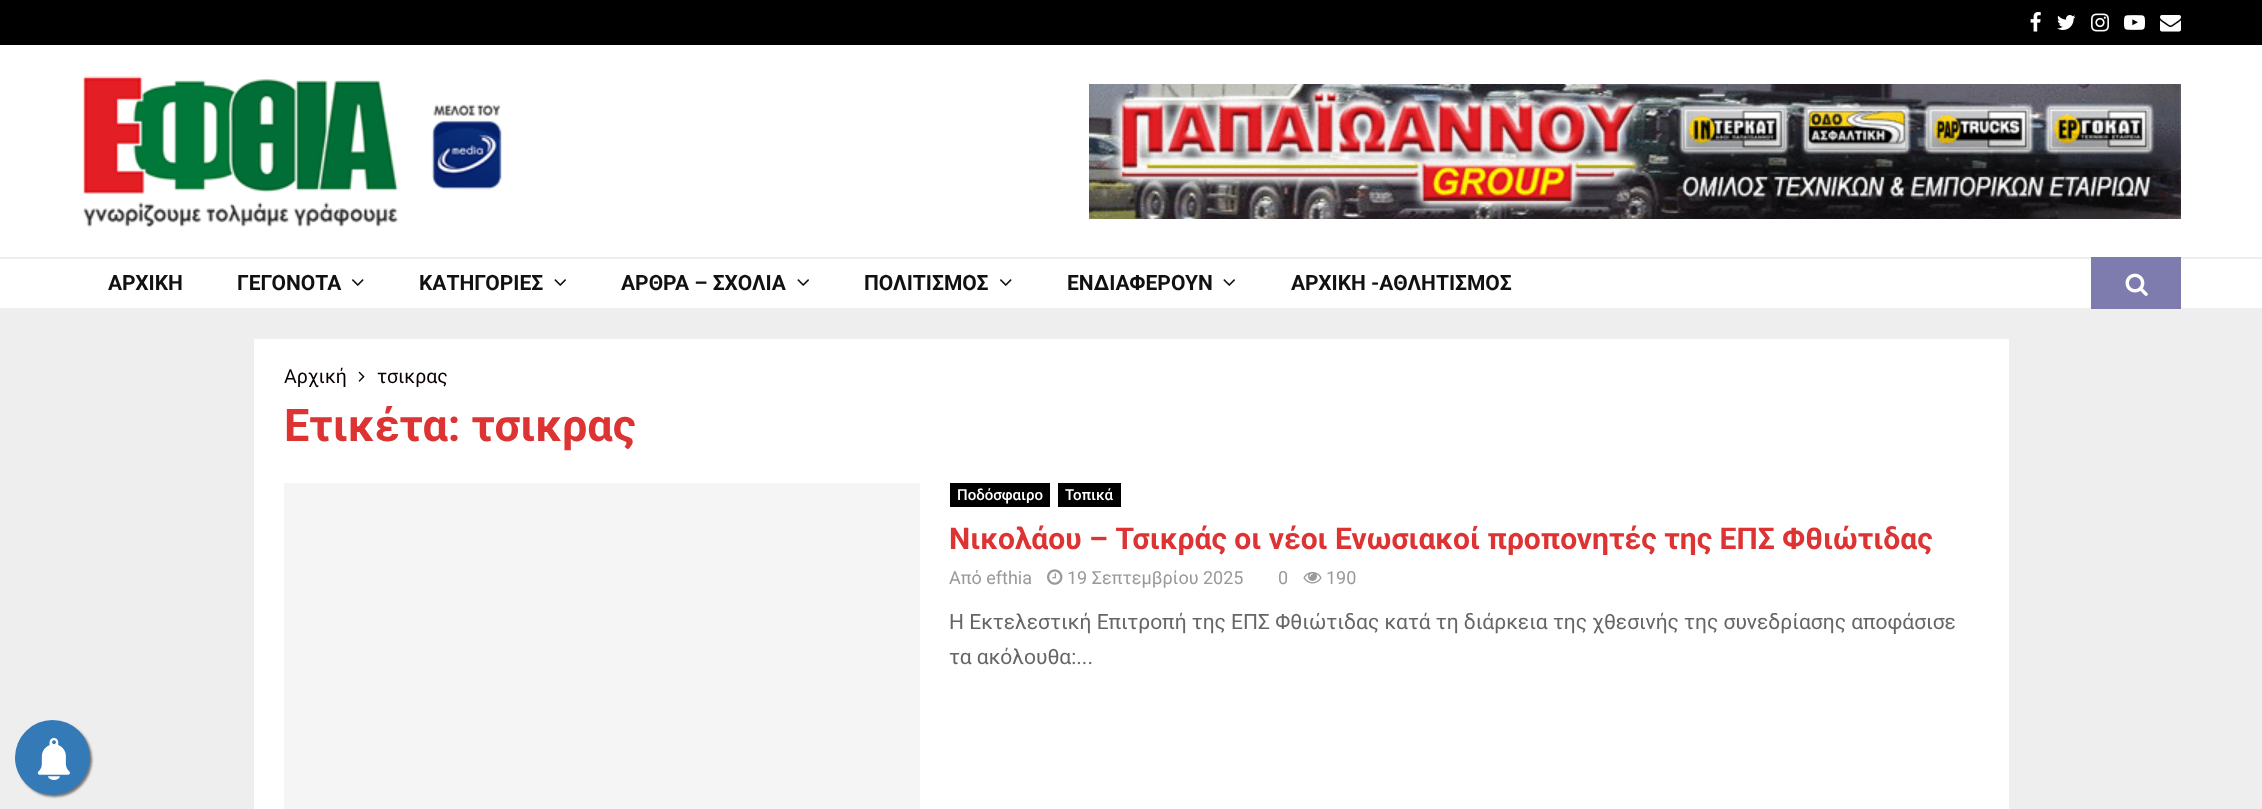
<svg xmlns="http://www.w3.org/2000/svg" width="2262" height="809">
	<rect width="100%" height="100%" fill="#EEEEEE" />
	<rect x="0" y="0" width="2262" height="45" fill="#000000" />
	<image x="2030" y="12" width="11" height="20" href="assets/img1.png" />
	<image x="2057" y="15" width="19" height="15" href="assets/img2.png" />
	<image x="2091" y="13" width="18" height="19" href="assets/img3.png" />
	<image x="2124" y="15" width="21" height="15" href="assets/img4.png" />
	<image x="2160" y="15" width="21" height="17" href="assets/img5.png" />
	<rect x="0" y="45" width="2262" height="212" fill="#FFFFFF" />
	<image x="82" y="76" width="420" height="151" href="assets/img6.png" />
	<image x="1089" y="84" width="1092" height="135" href="assets/img7.png" />
	<rect x="0" y="259" width="2262" height="49" fill="#FFFFFF" />
	<g font-family="Roboto" font-size="21" font-weight="700" fill="#111111">
		<text x="108" y="290">ΑΡΧΙΚΗ</text>
		<text x="237" y="290">ΓΕΓΟΝΟΤΑ</text>
	</g>
	<image x="352" y="279" width="12" height="7" href="assets/img8.png" />
	<text x="419" y="290" font-family="Roboto" font-size="21" font-weight="700" fill="#111111">ΚΑΤΗΓΟΡΙΕΣ</text>
	<image x="554" y="279" width="12" height="7" href="assets/img9.png" />
	<text x="621" y="290" font-family="Roboto" font-size="21" font-weight="700" fill="#111111">ΑΡΘΡΑ – ΣΧΟΛΙΑ</text>
	<image x="797" y="279" width="12" height="7" href="assets/img9.png" />
	<text x="864" y="290" font-family="Roboto" font-size="21" font-weight="700" fill="#111111">ΠΟΛΙΤΙΣΜΟΣ</text>
	<image x="1000" y="279" width="12" height="7" href="assets/img8.png" />
	<text x="1067" y="290" font-family="Roboto" font-size="21" font-weight="700" fill="#111111">ΕΝΔΙΑΦΕΡΟΥΝ</text>
	<image x="1223" y="279" width="12" height="7" href="assets/img9.png" />
	<text x="1291" y="290" font-family="Roboto" font-size="21" font-weight="700" fill="#111111">ΑΡΧΙΚΗ -ΑΘΛΗΤΙΣΜΟΣ</text>
	<rect x="2091" y="257" width="90" height="52" fill="#7E7CAF" />
	<image x="2125" y="273" width="23" height="23" href="assets/img10.png" />
	<rect x="254" y="339" width="1755" height="470" fill="#FFFFFF" />
	<text x="284" y="383" font-family="Roboto" font-size="19.5" fill="#0A0000">Αρχική</text>
	<image x="358" y="371" width="7" height="11" href="assets/img11.png" />
	<text x="377" y="383" font-family="Roboto" font-size="19.5" fill="#0A0000">τσικρας</text>
	<text x="284" y="441" font-family="Roboto" font-size="45" font-weight="700" fill="#DD3333">Ετικέτα: τσικρας</text>
	<rect x="284" y="483" width="636" height="326" fill="#F5F5F5" />
	<rect x="950" y="483" width="100" height="24" fill="#000000" />
	<text x="957" y="500" font-family="Roboto" font-size="15" font-weight="500" fill="#FFFFFF">Ποδόσφαιρο</text>
	<rect x="1058" y="483" width="63" height="24" fill="#000000" />
	<text x="1065" y="500" font-family="Roboto" font-size="15" font-weight="500" fill="#FFFFFF">Τοπικά</text>
	<text x="949" y="549" font-family="Roboto" font-size="30" font-weight="700" fill="#DD3333">Νικολάου – Τσικράς οι νέοι Ενωσιακοί προπονητές της ΕΠΣ Φθιώτιδας</text>
	<text x="949" y="584" font-family="Roboto" font-size="18" fill="#999999">Από efthia</text>
	<image x="1047" y="569" width="16" height="16" href="assets/img12.png" />
	<g font-family="Roboto" font-size="18" fill="#999999">
		<text x="1067" y="584">19 Σεπτεμβρίου 2025</text>
		<text x="1278" y="584">0</text>
	</g>
	<image x="1303" y="571" width="19" height="13" href="assets/img13.png" />
	<text x="1326" y="584" font-family="Roboto" font-size="18" fill="#999999">190</text>
	<g font-family="Roboto" font-size="21" fill="#666666">
		<text x="949" y="629">Η Εκτελεστική Επιτροπή της ΕΠΣ Φθιώτιδας κατά τη διάρκεια της χθεσινής της συνεδρίασης αποφάσισε</text>
		<text x="949" y="664">τα ακόλουθα:...</text>
	</g>
	<rect x="17" y="722" width="75" height="75" rx="37.5" fill="#000000" fill-opacity="0.5" filter="blur(1px)" />
	<circle cx="52.5" cy="757.5" r="37.5" fill="#337AB7" />
	<image x="37" y="738" width="33" height="42" href="assets/img14.png" />
</svg>
